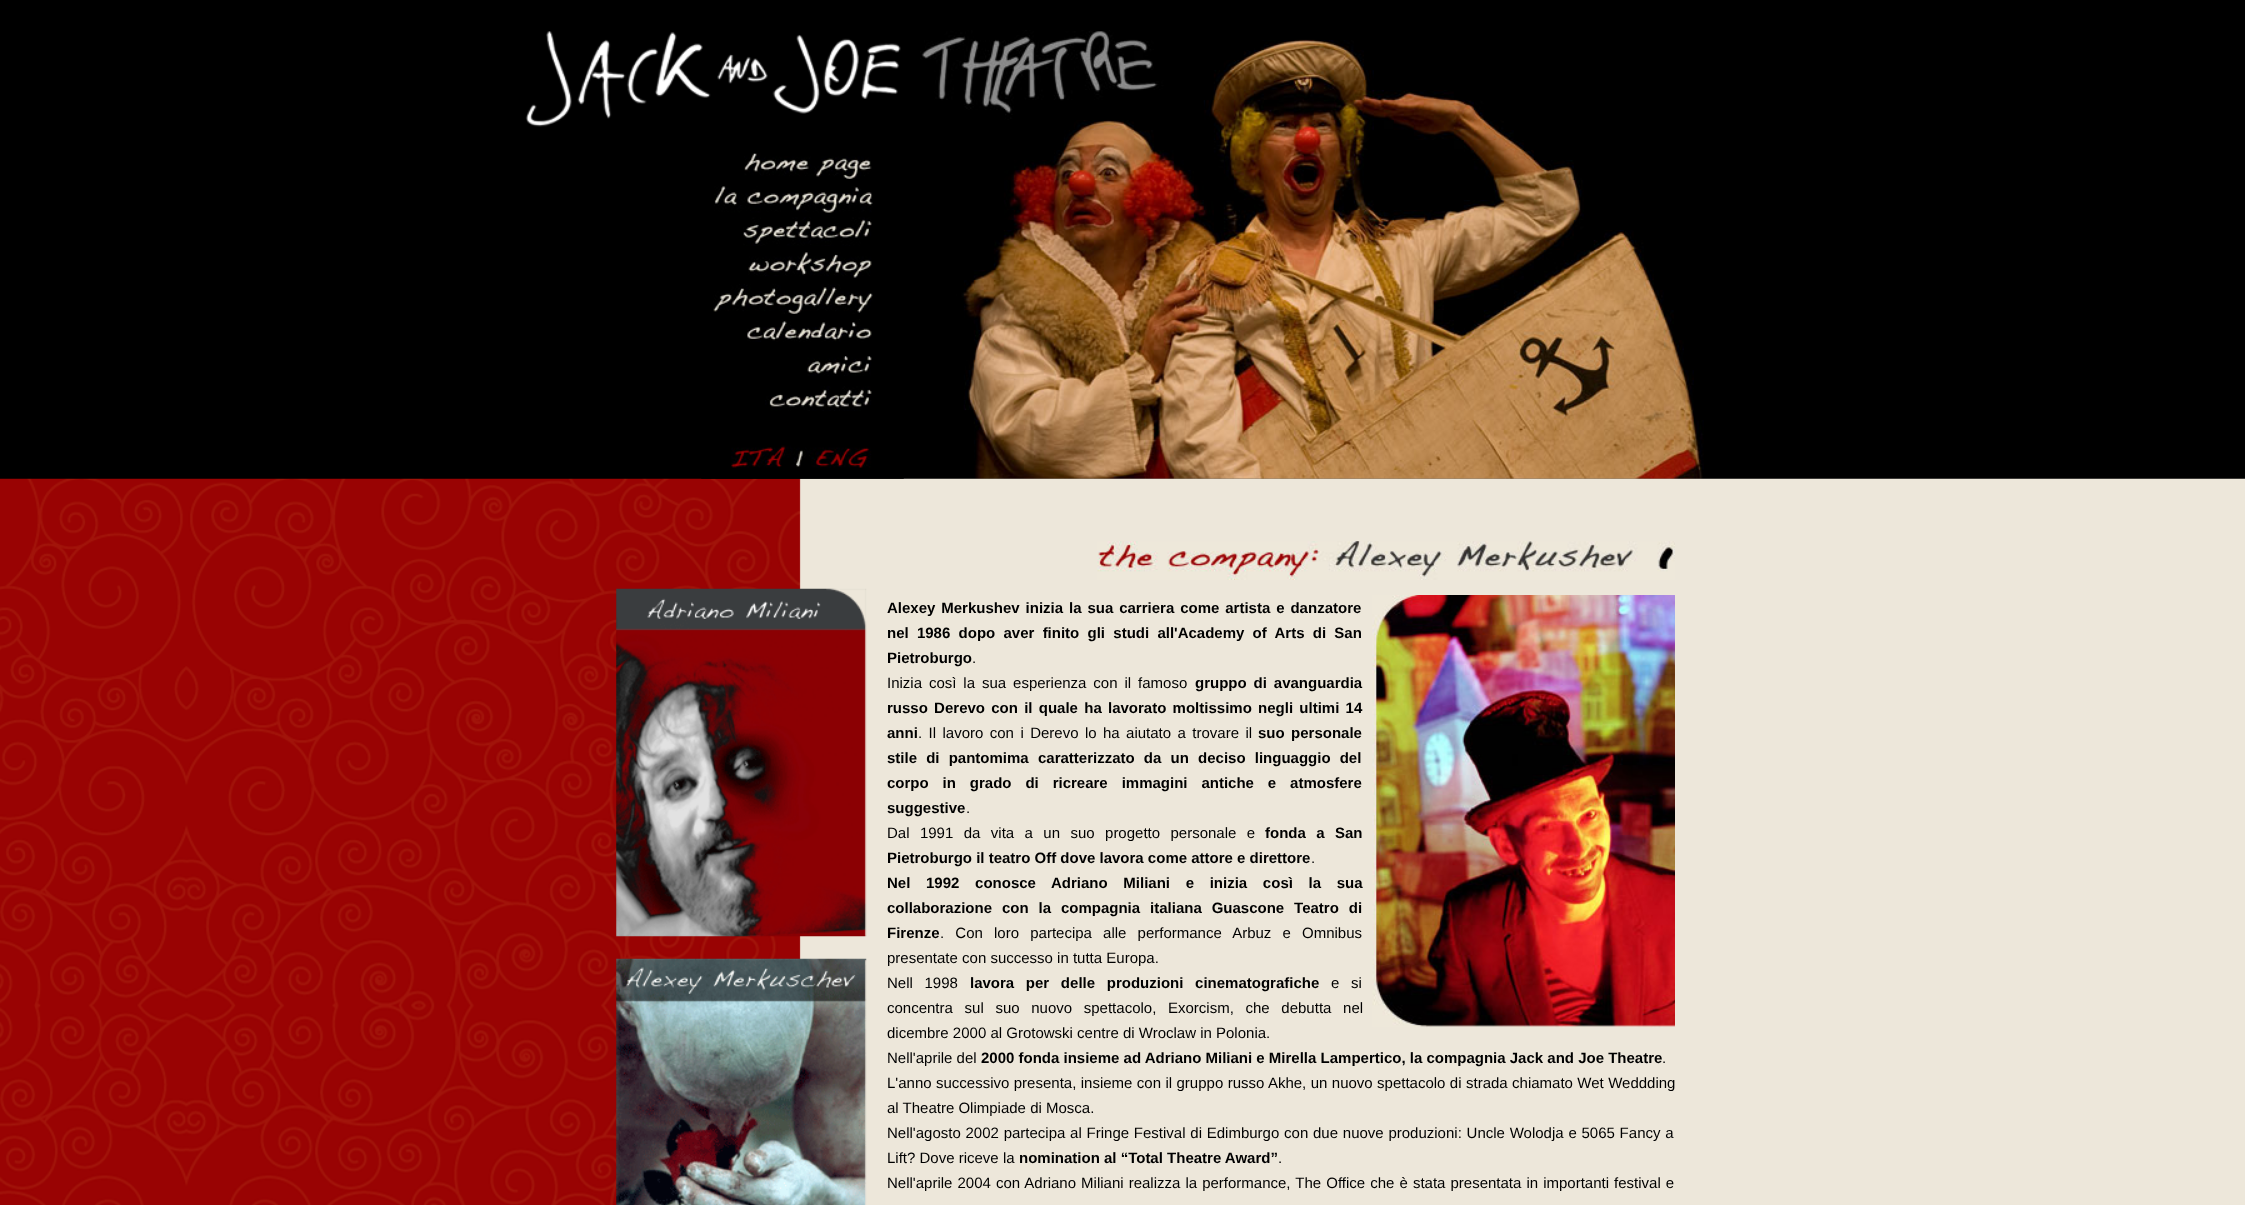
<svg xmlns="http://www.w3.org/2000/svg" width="2245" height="1205">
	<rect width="100%" height="100%" fill="#000000" />
	<image x="525" y="31" width="376" height="96" href="assets/img1.png" />
	<image x="920" y="30" width="784" height="449" href="assets/img2.png" />
	<image x="744" y="153" width="128" height="26" href="assets/img3.png" />
	<image x="714" y="186" width="159" height="27" href="assets/img4.png" />
	<image x="743" y="217" width="129" height="29" href="assets/img5.png" />
	<image x="748" y="252" width="124" height="26" href="assets/img6.png" />
	<image x="713" y="284" width="160" height="30" href="assets/img7.png" />
	<image x="747" y="319" width="125" height="23" href="assets/img8.png" />
	<image x="807" y="356" width="65" height="20" href="assets/img9.png" />
	<image x="765" y="386" width="107" height="25" href="assets/img10.png" />
	<image x="0" y="478" width="2245" height="727" href="assets/img12.png" />
	<image x="701" y="445" width="203" height="34" href="assets/img11.png" />
	<image x="616" y="588" width="251" height="349" href="assets/img13.png" />
	<image x="616" y="958" width="251" height="247" href="assets/img14.png" />
	<image x="1097" y="541" width="578" height="39" href="assets/img15.png" />
	<text x="887" y="613" word-spacing="1.75" font-family="Liberation Sans" font-size="15" font-weight="700" fill="#000000">Alexey Merkushev inizia la sua carriera come artista e danzatore</text>
	<image x="1372" y="595" width="303" height="433" href="assets/img16.png" />
	<g font-family="Liberation Sans" font-size="15" font-weight="700" fill="#000000">
		<text x="887" y="638" word-spacing="4.1">nel 1986 dopo aver finito gli studi all'Academy of Arts di San</text>
		<text x="887" y="663">Pietroburgo</text>
	</g>
	<g font-family="Liberation Sans" font-size="15" fill="#000000">
		<text x="972" y="663">.</text>
		<text x="887" y="688" word-spacing="2.75">Inizia così la sua esperienza con il famoso</text>
	</g>
	<g font-family="Liberation Sans" font-size="15" font-weight="700" fill="#000000">
		<text x="1195" y="688" word-spacing="2.75">gruppo di avanguardia</text>
		<text x="887" y="713" word-spacing="2.1">russo Derevo con il quale ha lavorato moltissimo negli ultimi 14</text>
		<text x="887" y="738">anni</text>
	</g>
	<text x="918" y="738" word-spacing="2.25" font-family="Liberation Sans" font-size="15" fill="#000000">. Il lavoro con i Derevo lo ha aiutato a trovare il</text>
	<g font-family="Liberation Sans" font-size="15" font-weight="700" fill="#000000">
		<text x="1258" y="738" word-spacing="2.25">suo personale</text>
		<text x="887" y="763" word-spacing="5">stile di pantomima</text>
		<text x="1038" y="763" word-spacing="5">caratterizzato da un deciso linguaggio del</text>
		<text x="887" y="788" word-spacing="9.75">corpo in grado di ricreare immagini antiche e atmosfere</text>
		<text x="887" y="813">suggestive</text>
	</g>
	<g font-family="Liberation Sans" font-size="15" fill="#000000">
		<text x="966" y="813">.</text>
		<text x="887" y="838" word-spacing="6.25">Dal 1991 da vita a un suo progetto personale e</text>
	</g>
	<g font-family="Liberation Sans" font-size="15" font-weight="700" fill="#000000">
		<text x="1265" y="838" word-spacing="6.25">fonda a San</text>
		<text x="887" y="863">Pietroburgo il teatro Off dove lavora come attore e direttore</text>
	</g>
	<text x="1311" y="863" font-family="Liberation Sans" font-size="15" fill="#000000">.</text>
	<g font-family="Liberation Sans" font-size="15" font-weight="700" fill="#000000">
		<text x="887" y="888" word-spacing="11.5">Nel 1992 conosce Adriano Miliani e inizia così la sua</text>
		<text x="887" y="913" word-spacing="5.75">collaborazione con la compagnia italiana Guascone Teatro di</text>
		<text x="887" y="938">Firenze</text>
	</g>
	<g font-family="Liberation Sans" font-size="15" fill="#000000">
		<text x="940" y="938" word-spacing="7">. Con loro partecipa alle performance Arbuz e Omnibus</text>
		<text x="887" y="963">presentate con successo in tutta Europa.</text>
		<text x="887" y="988" word-spacing="7.5">Nell 1998</text>
	</g>
	<text x="970" y="988" word-spacing="7.5" font-family="Liberation Sans" font-size="15" font-weight="700" fill="#000000">lavora per delle produzioni cinematografiche</text>
	<g font-family="Liberation Sans" font-size="15" fill="#000000">
		<text x="1331" y="988" word-spacing="7.5">e si</text>
		<text x="887" y="1013" word-spacing="7.5">concentra sul suo nuovo spettacolo, Exorcism, che debutta nel</text>
		<text x="887" y="1038">dicembre 2000 al Grotowski centre di Wroclaw in Polonia.</text>
		<text x="887" y="1063">Nell'aprile del</text>
	</g>
	<text x="981" y="1063" font-family="Liberation Sans" font-size="15" font-weight="700" fill="#000000">2000 fonda insieme ad Adriano Miliani e Mirella Lampertico, la compagnia Jack and Joe Theatre</text>
	<g font-family="Liberation Sans" font-size="15" fill="#000000">
		<text x="1662" y="1063">.</text>
		<text x="887" y="1088" word-spacing="0.25">L'anno successivo presenta, insieme con il gruppo russo Akhe, un nuovo spettacolo di strada chiamato Wet Weddding</text>
		<text x="887" y="1113">al Theatre Olimpiade di Mosca.</text>
		<text x="887" y="1138" word-spacing="0.6">Nell'agosto 2002 partecipa al Fringe Festival di Edimburgo con due nuove produzioni: Uncle Wolodja e 5065 Fancy a</text>
		<text x="887" y="1163">Lift? Dove riceve la</text>
	</g>
	<text x="1019" y="1163" font-family="Liberation Sans" font-size="15" font-weight="700" fill="#000000">nomination al “Total Theatre Award”</text>
	<g font-family="Liberation Sans" font-size="15" fill="#000000">
		<text x="1278" y="1163">.</text>
		<text x="887" y="1188" word-spacing="0.9">Nell'aprile 2004 con Adriano Miliani realizza la performance, The Office che è stata presentata in importanti festival e</text>
	</g>
</svg>
